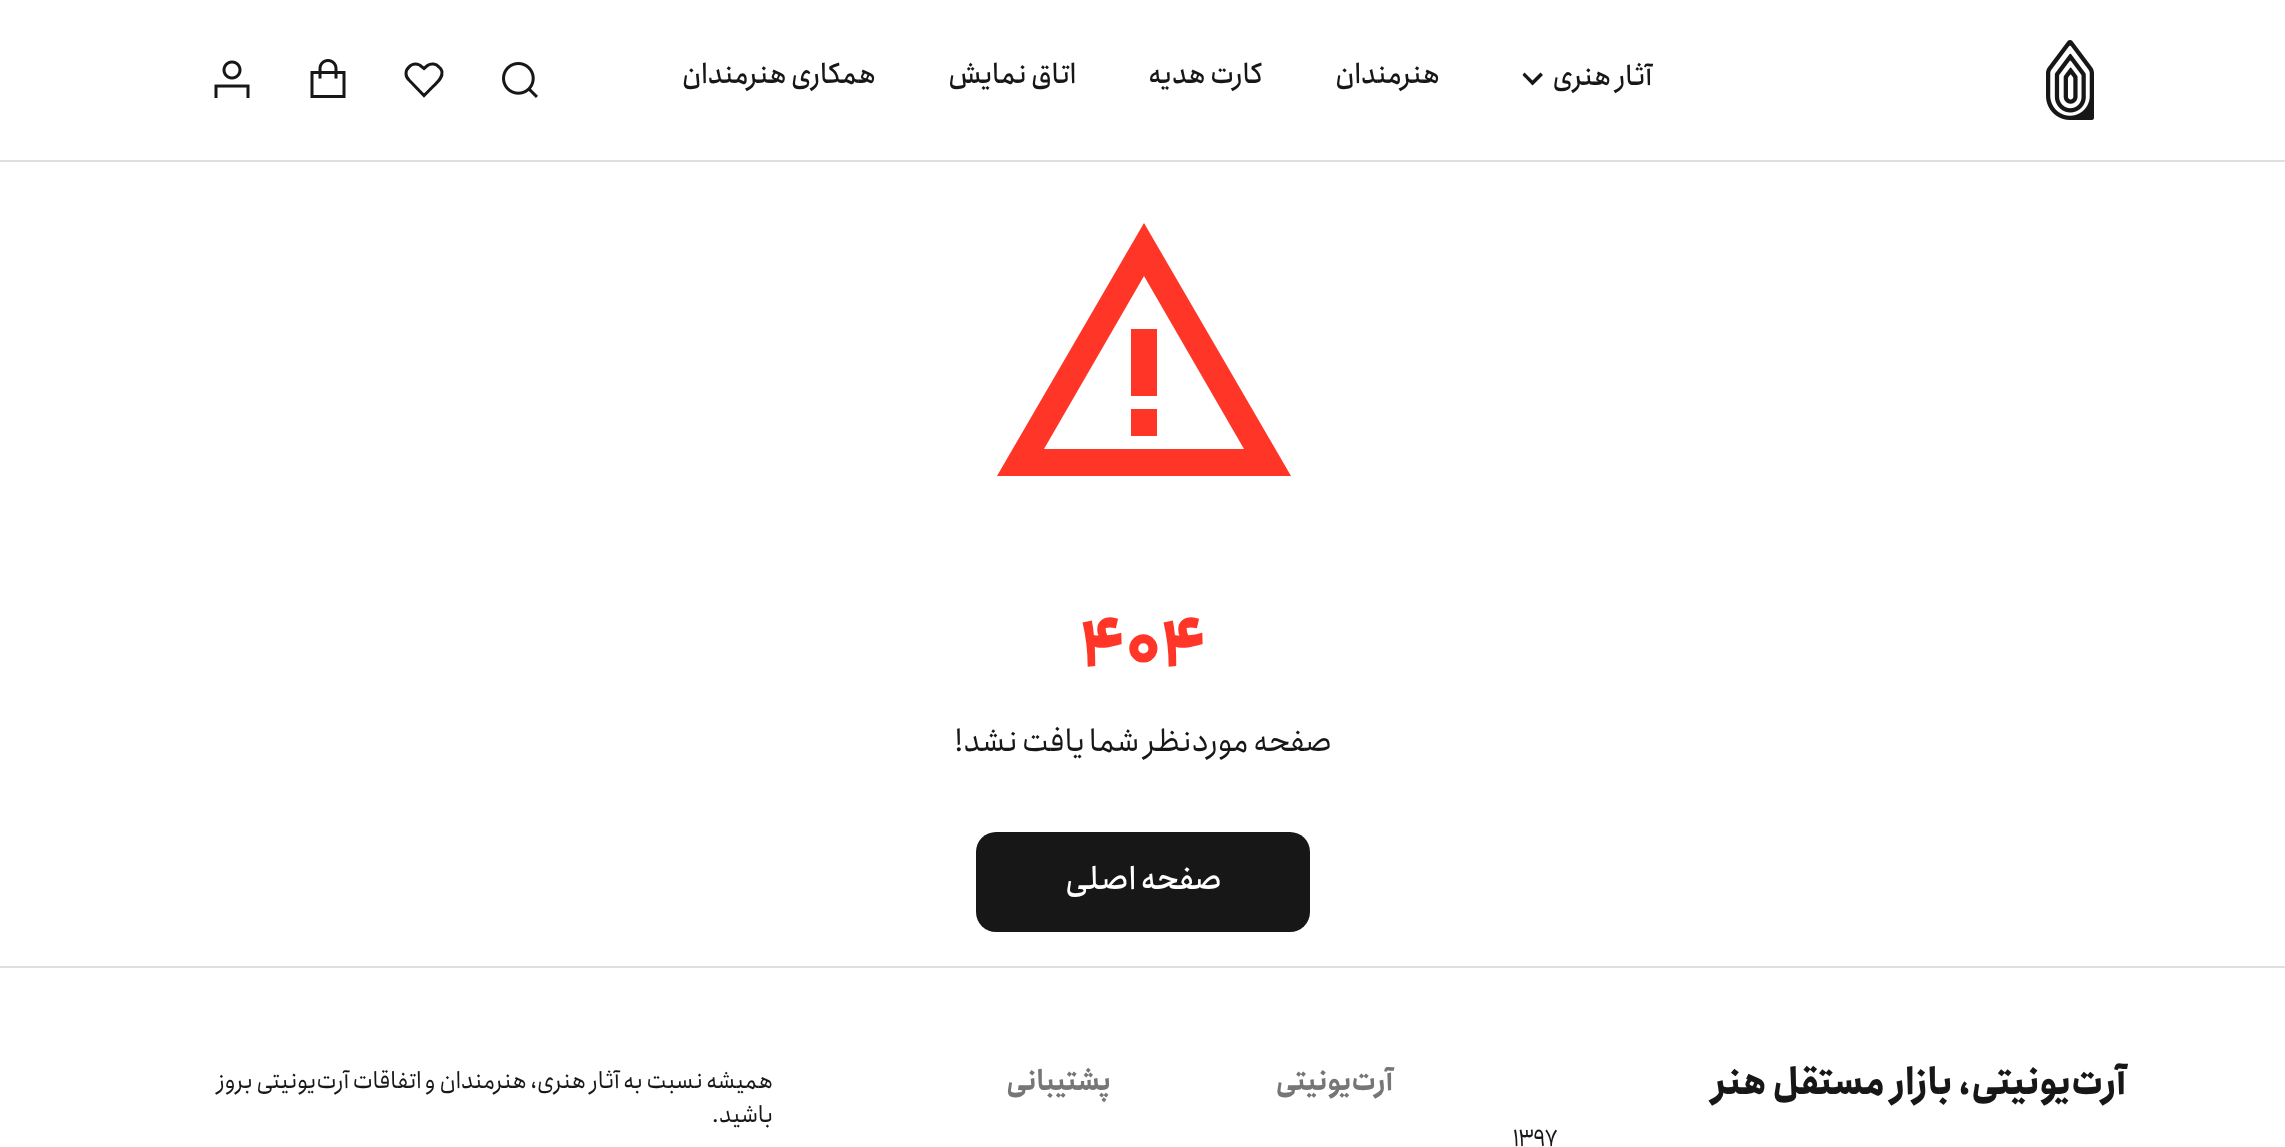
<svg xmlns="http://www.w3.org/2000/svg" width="2285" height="1147">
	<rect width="100%" height="100%" fill="#FFFFFF" />
	<image x="2046" y="40" width="48" height="80" href="assets/img1.png" />
	<text x="1652" y="85" font-family="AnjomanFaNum" font-size="28" font-weight="500" direction="rtl" fill="#171717">آثار هنری</text>
	<path d="M1524.5 72.5L1532.5 80.5L1540.5 72.5L1543 75L1532.5 85.5L1522.5 75Z" fill="#171717" />
	<g font-family="AnjomanFaNum" font-size="28" font-weight="500" direction="rtl" fill="#171717">
		<text x="1440" y="83">هنرمندان</text>
		<text x="1263" y="83">کارت هدیه</text>
		<text x="1076" y="83">اتاق نمایش</text>
		<text x="876" y="83">همکاری هنرمندان</text>
	</g>
	<image x="502" y="62" width="36" height="36" href="assets/img2.png" />
	<path d="M439 67C436 63.5 431 63 427.5 65.5L424 68.5L422 67C418.5 63 412.5 63 409 67C405 70.5 405 76.5 409 80L424 95.5L433 86.5C437 82.5 443 78 442 71.5C441.5 70 440.5 68 439 67Z" fill="none" stroke="#171717" stroke-width="3" />
	<image x="310" y="59" width="36" height="39" href="assets/img3.png" />
	<image x="214" y="60" width="36" height="38" href="assets/img4.png" />
	<rect x="0" y="160" width="2285" height="2" fill="#E0E0E0" />
	<path d="M1144 276L1244 449H1044ZM1144 223L997 476H1291Z" fill="#FF3528" />
	<path d="M1157 409H1131V436H1157ZM1157 329H1131V396H1157Z" fill="#FF3528" />
	<text x="1080" y="666" font-family="AnjomanFaNum" font-size="64" font-weight="800" fill="#FF3528">404</text>
	<text x="1332" y="751" font-family="AnjomanFaNum" font-size="32" direction="rtl" fill="#171717">صفحه موردنظر شما یافت نشد!</text>
	<rect x="976" y="832" width="334" height="100" rx="20" fill="#171717" />
	<text x="1222" y="889" font-family="AnjomanFaNum" font-size="32" font-weight="500" direction="rtl" fill="#FFFFFF">صفحه اصلی</text>
	<rect x="0" y="966" width="2285" height="2" fill="#E0E0E0" />
	<text x="2126" y="1094" font-family="AnjomanFaNum" font-size="36" font-weight="800" direction="rtl" fill="#171717">آرت‌یونیتی، بازار مستقل هنر</text>
	<text x="1513" y="1146" font-family="AnjomanFaNum" font-size="24" fill="#171717">۱۳۹۷</text>
	<g font-family="AnjomanFaNum" font-size="28" font-weight="700" direction="rtl" fill="#767676">
		<text x="1393" y="1090">آرت‌یونیتی</text>
		<text x="1111" y="1090">پشتیبانی</text>
	</g>
	<g font-family="AnjomanFaNum" font-size="24" direction="rtl" fill="#171717">
		<text x="773" y="1088" word-spacing="0.1">همیشه نسبت به آثار هنری، هنرمندان و اتفاقات آرت‌یونیتی بروز</text>
		<text x="773" y="1122">باشید.</text>
	</g>
</svg>
